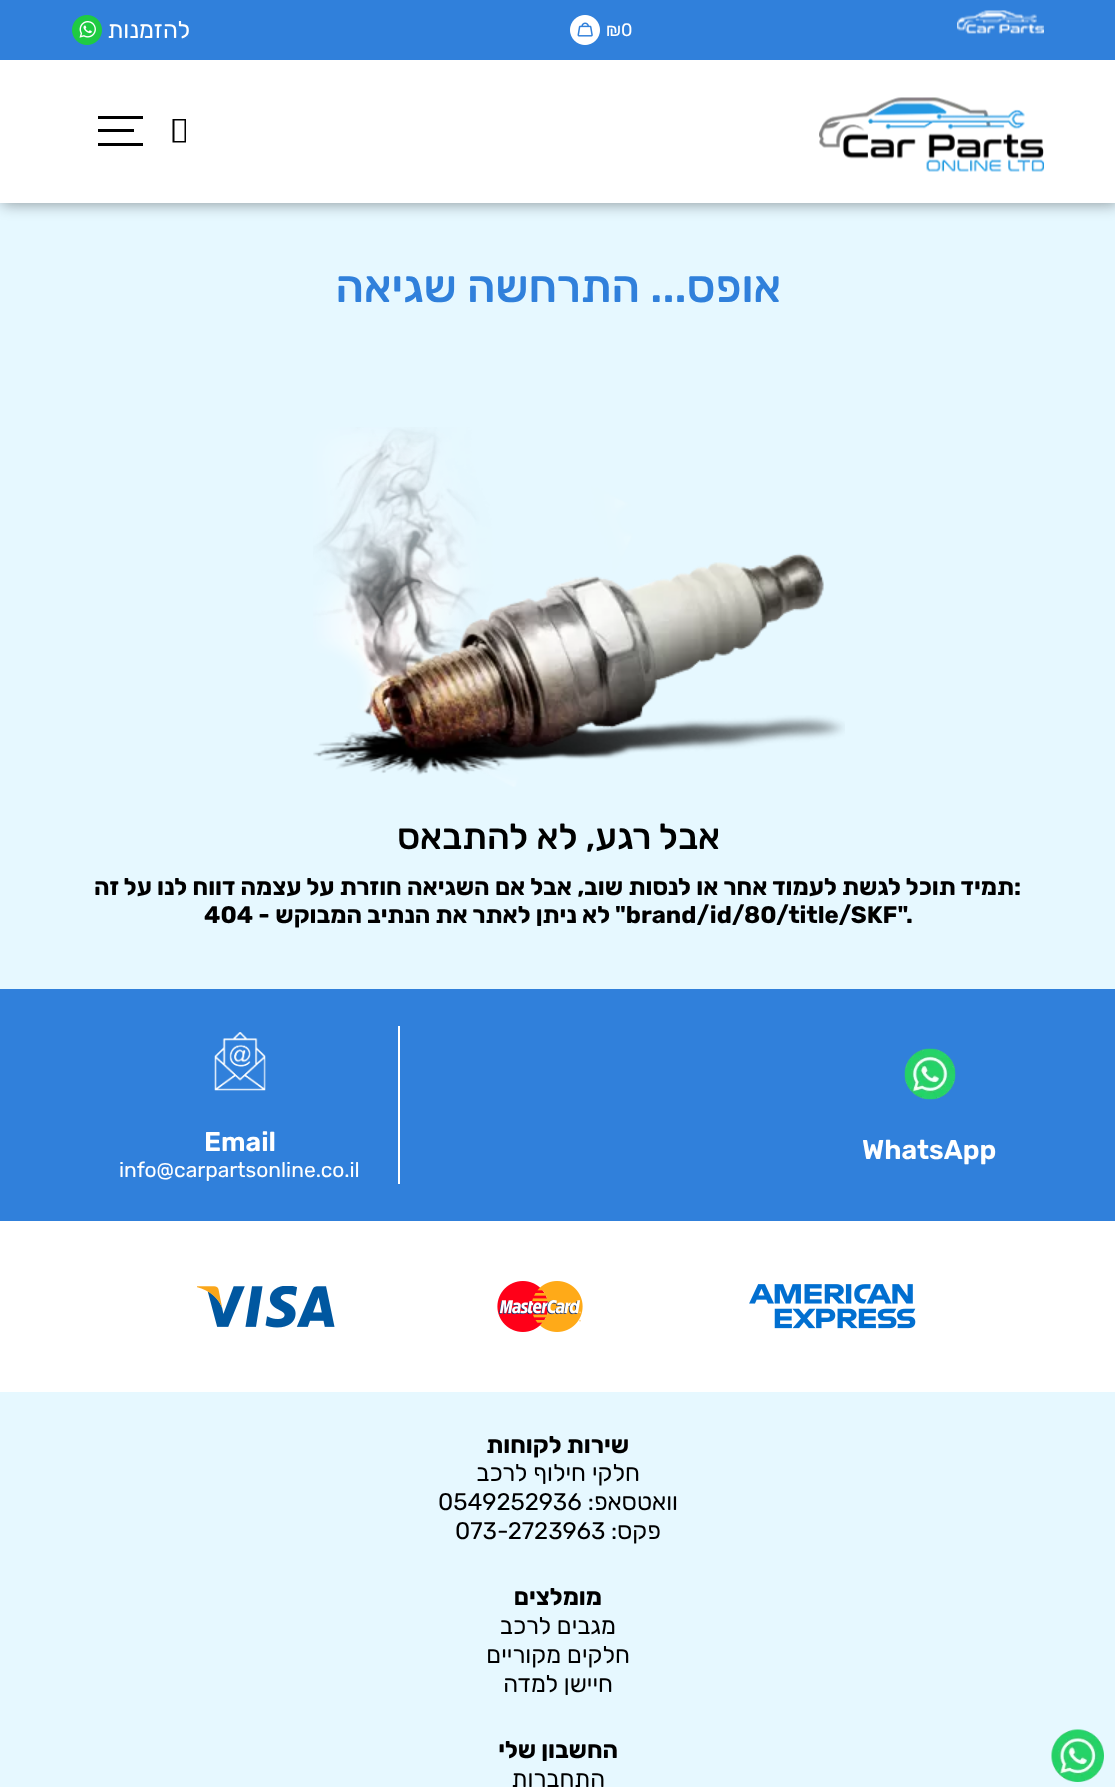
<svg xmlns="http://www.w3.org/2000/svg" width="1115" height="1787">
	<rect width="100%" height="100%" fill="#E6F8FF" />
	<rect x="2" y="2" width="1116" height="202" fill="#000000" fill-opacity="0.39" filter="blur(7.5px)" />
	<rect x="0" y="0" width="1115" height="60" fill="#3080DB" />
	<image x="957" y="10" width="87" height="24" href="assets/img1.png" />
	<text x="606" y="36" font-family="Rubik" font-size="18" fill="#FFFFFF">₪0</text>
	<image x="570" y="15" width="30" height="30" href="assets/img2.png" />
	<text x="190" y="38" font-family="Rubik" font-size="24" direction="rtl" fill="#FFFFFF">להזמנות</text>
	<image x="72" y="15" width="30" height="30" href="assets/img3.png" />
	<rect x="0" y="60" width="1115" height="143" fill="#FFFFFF" />
	<image x="819" y="97" width="225" height="75" href="assets/img4.png" />
	<path d="M172.5 142.5V119H186V142.5ZM174.5 141H184.5V120.5H174.5Z" fill="#000000" />
	<rect x="98" y="116" width="45" height="3" fill="#000000" />
	<rect x="98" y="129" width="36" height="3" fill="#000000" />
	<rect x="98" y="143" width="45" height="3" fill="#000000" />
	<text x="781" y="302" font-family="Rubik" font-size="45" font-weight="500" direction="rtl" fill="#3080DB">אופס... התרחשה שגיאה</text>
	<image x="313" y="427" width="532" height="360" href="assets/img5.png" />
	<text x="720" y="849" font-family="Rubik" font-size="36" font-weight="500" direction="rtl" fill="#000000">אבל רגע, לא להתבאס</text>
	<text x="1014" y="895" font-family="Rubik" font-size="24" font-weight="700" fill="#000000">:</text>
	<text x="1014" y="895" word-spacing="0.25" font-family="Rubik" font-size="24" font-weight="700" direction="rtl" fill="#000000">תמיד תוכל לגשת לעמוד אחר או לנסות שוב, אבל אם השגיאה חוזרת על עצמה דווח לנו על זה</text>
	<text x="615" y="923" font-family="Rubik" font-size="24" font-weight="700" fill="#000000">"brand/id/80/title/SKF".</text>
	<text x="610" y="923" font-family="Rubik" font-size="24" font-weight="700" direction="rtl" fill="#000000">לא ניתן לאתר את הנתיב המבוקש</text>
	<text x="204" y="923" font-family="Rubik" font-size="24" font-weight="700" fill="#000000">404 -</text>
	<rect x="0" y="989" width="1115" height="232" fill="#3080DB" />
	<image x="904" y="1048" width="52" height="52" href="assets/img6.png" />
	<text x="862" y="1159" font-family="Rubik" font-size="27" font-weight="600" fill="#FFFFFF">WhatsApp</text>
	<rect x="398" y="1026" width="2" height="158" fill="#FFFFFF" />
	<image x="214" y="1032" width="52" height="59" href="assets/img7.png" />
	<text x="204" y="1151" font-family="Rubik" font-size="27" font-weight="600" fill="#FFFFFF">Email</text>
	<text x="119" y="1177" font-family="Rubik" font-size="21" fill="#FFFFFF">info@carpartsonline.co.il</text>
	<rect x="0" y="1221" width="1115" height="171" fill="#FFFFFF" />
	<image x="749" y="1284" width="167" height="45" href="assets/img8.png" />
	<image x="497" y="1281" width="86" height="51" href="assets/img9.png" />
	<image x="197" y="1286" width="138" height="42" href="assets/img10.png" />
	<image x="1051" y="1729" width="53" height="53" href="assets/img11.png" />
	<text x="629" y="1453" font-family="Rubik" font-size="24" font-weight="700" direction="rtl" fill="#000000">שירות לקוחות</text>
	<g font-family="Rubik" font-size="24" direction="rtl" fill="#000000">
		<text x="640" y="1481">חלקי חילוף לרכב</text>
		<text x="678" y="1510">וואטסאפ:</text>
	</g>
	<text x="438" y="1510" font-family="Rubik" font-size="24" fill="#000000">0549252936</text>
	<text x="661" y="1539" font-family="Rubik" font-size="24" direction="rtl" fill="#000000">פקס:</text>
	<text x="455" y="1539" font-family="Rubik" font-size="24" fill="#000000">073-2723963</text>
	<text x="602" y="1605" font-family="Rubik" font-size="24" font-weight="700" direction="rtl" fill="#000000">מומלצים</text>
	<g font-family="Rubik" font-size="24" direction="rtl" fill="#000000">
		<text x="616" y="1634">מגבים לרכב</text>
		<text x="630" y="1663">חלקים מקוריים</text>
		<text x="613" y="1692">חיישן למדה</text>
	</g>
	<text x="618" y="1758" font-family="Rubik" font-size="24" font-weight="700" direction="rtl" fill="#000000">החשבון שלי</text>
	<text x="605" y="1787" font-family="Rubik" font-size="24" direction="rtl" fill="#000000">התחברות</text>
</svg>
